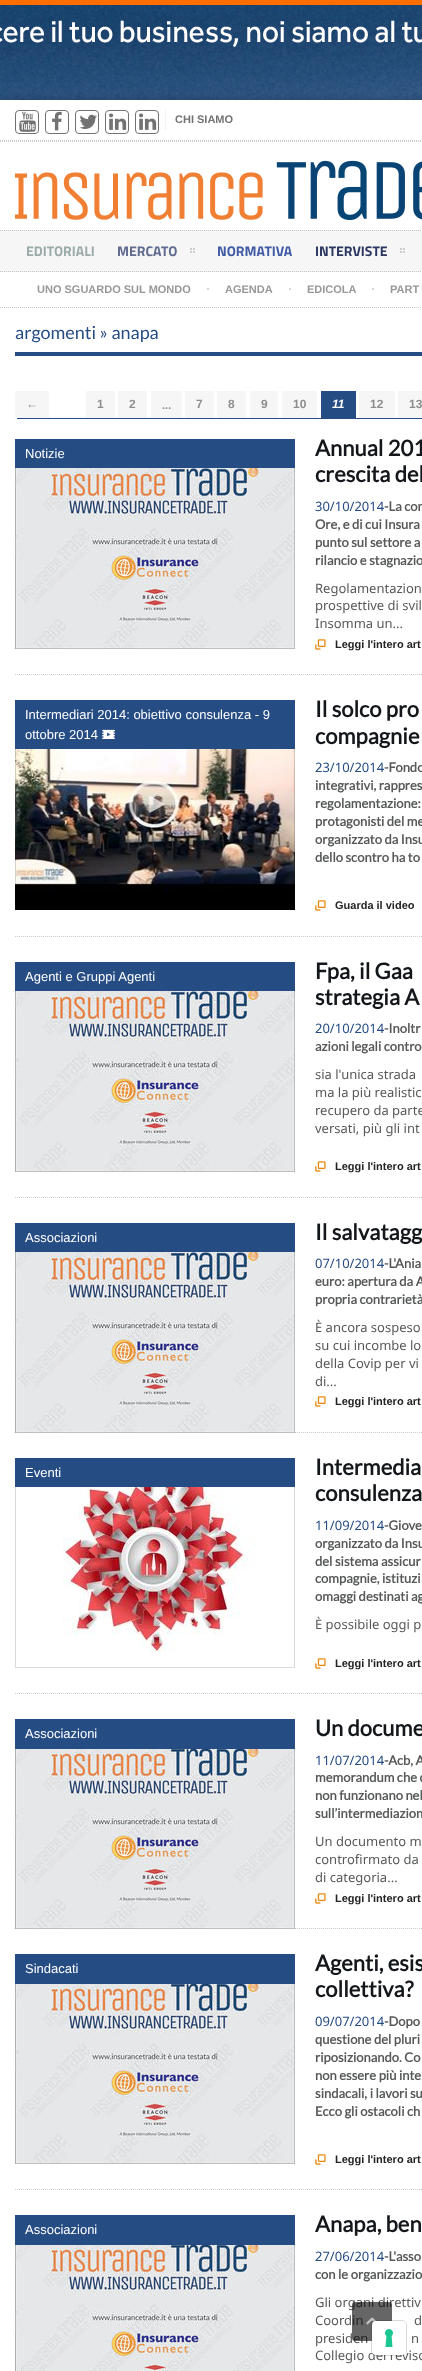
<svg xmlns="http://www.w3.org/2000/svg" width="422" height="2371">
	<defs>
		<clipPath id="clip1"><rect x="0" y="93" width="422" height="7" /></clipPath>
	</defs>
	<rect width="100%" height="100%" fill="#FFFFFF" />
	<image x="0" y="0" width="422" height="100" href="assets/img1.png" />
	<g clip-path="url(#clip1)">
		<rect x="0" y="100" width="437" height="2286" fill="#000000" fill-opacity="0.26" filter="blur(5px)" />
	</g>
	<path d="M165.5 110V129" fill="none" stroke="#E5E5E5" stroke-dasharray="1 1" />
	<rect x="15.5" y="110.5" width="23" height="23" rx="3.5" fill="none" stroke="#727272" />
	<image x="19" y="111" width="17" height="21" href="assets/img2.png" />
	<rect x="45.5" y="110.5" width="23" height="23" rx="3.5" fill="none" stroke="#727272" />
	<image x="52" y="111" width="10" height="20" href="assets/img3.png" />
	<rect x="75.5" y="110.5" width="23" height="23" rx="3.5" fill="none" stroke="#727272" />
	<image x="79" y="114" width="18" height="15" href="assets/img4.png" />
	<rect x="105.5" y="110.5" width="23" height="23" rx="3.5" fill="none" stroke="#727272" />
	<image x="109" y="113" width="18" height="17" href="assets/img5.png" />
	<rect x="135.5" y="110.5" width="23" height="23" rx="3.5" fill="none" stroke="#727272" />
	<image x="139" y="113" width="18" height="17" href="assets/img5.png" />
	<text x="175" y="123" font-family="Liberation Sans" font-size="11" font-weight="700" fill="#727272">CHI SIAMO</text>
	<path d="M0 140.5H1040" fill="none" stroke="#CCCCCC" stroke-dasharray="1 1" />
	<path d="M0 141.5H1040" fill="none" stroke="#CCCCCC" stroke-dasharray="1 1" />
	<image x="15" y="160" width="407" height="60" href="assets/img6.png" />
	<rect x="0" y="230" width="422" height="42" fill="#F6F6F6" />
	<path d="M0 230.5H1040" fill="none" stroke="#C5C5C5" stroke-dasharray="1 1" />
	<path d="M0 271.5H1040" fill="none" stroke="#C5C5C5" stroke-dasharray="1 1" />
	<text x="26" y="256" font-family="Titillium Web" font-size="14" font-weight="700" fill="#9CAAAA">EDITORIALI</text>
	<text x="117" y="256" font-family="Titillium Web" font-size="14" font-weight="700" fill="#606B8F">MERCATO</text>
	<rect x="190" y="248" width="5" height="5" fill="#CCCCCC" />
	<image x="190" y="248" width="5" height="5" href="assets/img7.png" />
	<text x="217" y="256" font-family="Titillium Web" font-size="14" font-weight="700" fill="#405BA6">NORMATIVA</text>
	<text x="315" y="256" font-family="Titillium Web" font-size="14" font-weight="700" fill="#2B3761">INTERVISTE</text>
	<rect x="400" y="248" width="5" height="5" fill="#CCCCCC" />
	<image x="400" y="248" width="5" height="5" href="assets/img7.png" />
	<path d="M0 307.5H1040" fill="none" stroke="#CCCCCC" stroke-dasharray="1 1" />
	<rect x="207" y="288" width="2" height="2" fill="#D6D6D6" />
	<text x="37" y="293" font-family="Liberation Sans" font-size="11" font-weight="700" fill="#989898">UNO SGUARDO SUL MONDO</text>
	<rect x="289" y="288" width="2" height="2" fill="#D6D6D6" />
	<text x="225" y="293" font-family="Liberation Sans" font-size="11" font-weight="700" fill="#989898">AGENDA</text>
	<rect x="372" y="288" width="2" height="2" fill="#D6D6D6" />
	<g font-family="Liberation Sans" font-size="11" font-weight="700" fill="#989898">
		<text x="307" y="293">EDICOLA</text>
		<text x="390" y="293">PART</text>
	</g>
	<rect x="15" y="352" width="407" height="4" fill="#264C84" />
	<text x="15" y="339" font-family="Lato" font-size="18" fill="#264C84">argomenti » anapa</text>
	<rect x="17" y="418" width="405" height="1" fill="#264C84" />
	<rect x="15" y="391" width="34" height="27" fill="#F6F6F6" />
	<text x="26" y="408" font-family="Liberation Sans" font-size="12" font-weight="700" fill="#8F8E8E">←</text>
	<rect x="86" y="391" width="29" height="27" fill="#F6F6F6" />
	<text x="97" y="408" font-family="Liberation Sans" font-size="12" font-weight="700" fill="#8F8E8E">1</text>
	<rect x="118" y="391" width="29" height="27" fill="#F6F6F6" />
	<text x="129" y="408" font-family="Liberation Sans" font-size="12" font-weight="700" fill="#8F8E8E">2</text>
	<rect x="185" y="391" width="29" height="27" fill="#F6F6F6" />
	<text x="196" y="408" font-family="Liberation Sans" font-size="12" font-weight="700" fill="#8F8E8E">7</text>
	<rect x="217" y="391" width="29" height="27" fill="#F6F6F6" />
	<text x="228" y="408" font-family="Liberation Sans" font-size="12" font-weight="700" fill="#8F8E8E">8</text>
	<rect x="250" y="391" width="28" height="27" fill="#F6F6F6" />
	<text x="261" y="408" font-family="Liberation Sans" font-size="12" font-weight="700" fill="#8F8E8E">9</text>
	<rect x="282" y="391" width="35" height="27" fill="#F6F6F6" />
	<text x="293" y="408" font-family="Liberation Sans" font-size="12" font-weight="700" fill="#8F8E8E">10</text>
	<rect x="321" y="391" width="35" height="27" fill="#264C84" />
	<text x="332" y="408" font-family="Liberation Sans" font-size="12" font-weight="700" font-style="italic" fill="#FFFFFF">11</text>
	<rect x="359" y="391" width="36" height="27" fill="#F6F6F6" />
	<text x="370" y="408" font-family="Liberation Sans" font-size="12" font-weight="700" fill="#8F8E8E">12</text>
	<rect x="398" y="391" width="24" height="27" fill="#F6F6F6" />
	<text x="409" y="408" font-family="Liberation Sans" font-size="12" font-weight="700" fill="#8F8E8E">13</text>
	<rect x="151" y="391" width="31" height="27" fill="#F6F6F6" />
	<text x="162" y="409" font-family="Lato" font-size="12" font-weight="700" fill="#8F8E8E">…</text>
	<image x="15" y="468" width="280" height="181" href="assets/img8.png" />
	<rect x="15.5" y="439.5" width="279" height="209" fill="none" stroke="#000000" stroke-opacity="0.15" />
	<rect x="15" y="439" width="280" height="29" fill="#264C84" />
	<text x="25" y="458" font-family="Liberation Sans" font-size="13" fill="#FFFFFF">Notizie</text>
	<g font-family="Lato" font-size="22" font-weight="700" fill="#13161A">
		<text x="315" y="456">Annual 201</text>
		<text x="315" y="482">crescita del</text>
	</g>
	<text x="315" y="511" font-family="Noto Sans" font-size="13" fill="#264C84">30/10/2014</text>
	<g font-family="Lato" font-size="13" font-weight="700" fill="#575959">
		<text x="384" y="511">-La con</text>
		<text x="315" y="529">Ore, e di cui Insura</text>
		<text x="315" y="547">punto sul settore a</text>
		<text x="315" y="565">rilancio e stagnazio</text>
	</g>
	<g font-family="Noto Sans" font-size="13" fill="#575959">
		<text x="315" y="593">Regolamentazion</text>
		<text x="315" y="610">prospettive di svil</text>
		<text x="315" y="628">Insomma un...</text>
	</g>
	<image x="315" y="639" width="11" height="11" href="assets/img9.png" />
	<text x="335" y="648" font-family="Liberation Sans" font-size="11" font-weight="700" fill="#232323">Leggi l'intero art</text>
	<path d="M15 674.5H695" fill="none" stroke="#CCCCCC" stroke-dasharray="1 1" />
	<image x="15" y="749" width="280" height="161" href="assets/img10.png" />
	<rect x="15.5" y="700.5" width="279" height="209" fill="none" stroke="#000000" stroke-opacity="0.15" />
	<rect x="15" y="700" width="280" height="49" fill="#264C84" />
	<g font-family="Liberation Sans" font-size="13" fill="#FFFFFF">
		<text x="25" y="719">Intermediari 2014: obiettivo consulenza - 9</text>
		<text x="25" y="739">ottobre 2014</text>
	</g>
	<image x="102" y="729" width="13" height="10" href="assets/img11.png" />
	<g font-family="Lato" font-size="22" font-weight="700" fill="#13161A">
		<text x="315" y="717">Il solco pro</text>
		<text x="315" y="744">compagnie</text>
	</g>
	<text x="315" y="772" font-family="Noto Sans" font-size="13" fill="#264C84">23/10/2014</text>
	<g font-family="Lato" font-size="13" font-weight="700" fill="#575959">
		<text x="384" y="772">-Fondo</text>
		<text x="315" y="790">integrativi, rappres</text>
		<text x="315" y="808">regolamentazione:</text>
		<text x="315" y="826">protagonisti del me</text>
		<text x="315" y="844">organizzato da Insu</text>
		<text x="315" y="862">dello scontro ha to</text>
	</g>
	<image x="315" y="900" width="11" height="11" href="assets/img9.png" />
	<text x="335" y="909" font-family="Liberation Sans" font-size="11" font-weight="700" fill="#232323">Guarda il video</text>
	<path d="M15 936.5H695" fill="none" stroke="#CCCCCC" stroke-dasharray="1 1" />
	<image x="15" y="991" width="280" height="181" href="assets/img8.png" />
	<rect x="15.5" y="962.5" width="279" height="209" fill="none" stroke="#000000" stroke-opacity="0.15" />
	<rect x="15" y="962" width="280" height="29" fill="#264C84" />
	<text x="25" y="981" font-family="Liberation Sans" font-size="13" fill="#FFFFFF">Agenti e Gruppi Agenti</text>
	<g font-family="Lato" font-size="22" font-weight="700" fill="#13161A">
		<text x="315" y="979">Fpa, il Gaa</text>
		<text x="315" y="1005">strategia A</text>
	</g>
	<text x="315" y="1033" font-family="Noto Sans" font-size="13" fill="#264C84">20/10/2014</text>
	<g font-family="Lato" font-size="13" font-weight="700" fill="#575959">
		<text x="384" y="1033">-Inoltr</text>
		<text x="315" y="1051">azioni legali contro</text>
	</g>
	<g font-family="Noto Sans" font-size="13" fill="#575959">
		<text x="315" y="1079">sia l'unica strada</text>
		<text x="315" y="1097">ma la più realistic</text>
		<text x="315" y="1115">recupero da parte</text>
		<text x="315" y="1133">versati, più gli int</text>
	</g>
	<image x="315" y="1161" width="11" height="11" href="assets/img9.png" />
	<text x="335" y="1170" font-family="Liberation Sans" font-size="11" font-weight="700" fill="#232323">Leggi l'intero art</text>
	<path d="M15 1197.5H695" fill="none" stroke="#CCCCCC" stroke-dasharray="1 1" />
	<path d="M15 1432.5H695" fill="none" stroke="#CCCCCC" stroke-dasharray="1 1" />
	<image x="15" y="1252" width="280" height="181" href="assets/img8.png" />
	<rect x="15.5" y="1223.5" width="279" height="209" fill="none" stroke="#000000" stroke-opacity="0.15" />
	<rect x="15" y="1223" width="280" height="29" fill="#264C84" />
	<text x="25" y="1242" font-family="Liberation Sans" font-size="13" fill="#FFFFFF">Associazioni</text>
	<text x="315" y="1240" font-family="Lato" font-size="22" font-weight="700" fill="#13161A">Il salvatagg</text>
	<text x="315" y="1268" font-family="Noto Sans" font-size="13" fill="#264C84">07/10/2014</text>
	<g font-family="Lato" font-size="13" font-weight="700" fill="#575959">
		<text x="384" y="1268">-L'Ania</text>
		<text x="315" y="1286">euro: apertura da A</text>
		<text x="315" y="1304">propria contrarietà</text>
	</g>
	<g font-family="Noto Sans" font-size="13" fill="#575959">
		<text x="315" y="1332">È ancora sospeso</text>
		<text x="315" y="1350">su cui incombe lo</text>
		<text x="315" y="1368">della Covip per vi</text>
		<text x="315" y="1386">di...</text>
	</g>
	<image x="315" y="1396" width="11" height="11" href="assets/img9.png" />
	<text x="335" y="1405" font-family="Liberation Sans" font-size="11" font-weight="700" fill="#232323">Leggi l'intero art</text>
	<image x="16" y="1487" width="278" height="180" href="assets/img12.png" />
	<rect x="15.5" y="1458.5" width="279" height="209" fill="none" stroke="#D9D9D9" />
	<rect x="15" y="1458" width="280" height="29" fill="#264C84" />
	<text x="25" y="1477" font-family="Liberation Sans" font-size="13" fill="#FFFFFF">Eventi</text>
	<g font-family="Lato" font-size="22" font-weight="700" fill="#13161A">
		<text x="315" y="1475">Intermedia</text>
		<text x="315" y="1501">consulenza</text>
	</g>
	<text x="315" y="1530" font-family="Noto Sans" font-size="13" fill="#264C84">11/09/2014</text>
	<g font-family="Lato" font-size="13" font-weight="700" fill="#575959">
		<text x="384" y="1530">-Giove</text>
		<text x="315" y="1548">organizzato da Insu</text>
		<text x="315" y="1566">del sistema assicur</text>
		<text x="315" y="1583">compagnie, istituzi</text>
		<text x="315" y="1601">omaggi destinati ag</text>
	</g>
	<text x="315" y="1629" font-family="Noto Sans" font-size="13" fill="#575959">È possibile oggi p</text>
	<image x="315" y="1658" width="11" height="11" href="assets/img9.png" />
	<text x="335" y="1667" font-family="Liberation Sans" font-size="11" font-weight="700" fill="#232323">Leggi l'intero art</text>
	<path d="M15 1693.5H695" fill="none" stroke="#CCCCCC" stroke-dasharray="1 1" />
	<path d="M15 1928.5H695" fill="none" stroke="#CCCCCC" stroke-dasharray="1 1" />
	<image x="15" y="1749" width="280" height="180" href="assets/img13.png" />
	<rect x="15.5" y="1719.5" width="279" height="209" fill="none" stroke="#000000" stroke-opacity="0.15" />
	<rect x="15" y="1719" width="280" height="30" fill="#264C84" />
	<text x="25" y="1738" font-family="Liberation Sans" font-size="13" fill="#FFFFFF">Associazioni</text>
	<text x="315" y="1736" font-family="Lato" font-size="22" font-weight="700" fill="#13161A">Un docume</text>
	<text x="315" y="1765" font-family="Noto Sans" font-size="13" fill="#264C84">11/07/2014</text>
	<g font-family="Lato" font-size="13" font-weight="700" fill="#575959">
		<text x="384" y="1765">-Acb, A</text>
		<text x="315" y="1782">memorandum che c</text>
		<text x="315" y="1800">non funzionano nel</text>
		<text x="315" y="1818">sull’intermediazion</text>
	</g>
	<g font-family="Noto Sans" font-size="13" fill="#575959">
		<text x="315" y="1846">Un documento m</text>
		<text x="315" y="1864">controfirmato da</text>
		<text x="315" y="1882">di categoria...</text>
	</g>
	<image x="315" y="1893" width="11" height="11" href="assets/img9.png" />
	<text x="335" y="1902" font-family="Liberation Sans" font-size="11" font-weight="700" fill="#232323">Leggi l'intero art</text>
	<image x="15" y="1984" width="280" height="180" href="assets/img13.png" />
	<rect x="15.5" y="1954.5" width="279" height="209" fill="none" stroke="#000000" stroke-opacity="0.15" />
	<rect x="15" y="1954" width="280" height="30" fill="#264C84" />
	<text x="25" y="1973" font-family="Liberation Sans" font-size="13" fill="#FFFFFF">Sindacati</text>
	<g font-family="Lato" font-size="22" font-weight="700" fill="#13161A">
		<text x="315" y="1971">Agenti, esis</text>
		<text x="315" y="1997">collettiva?</text>
	</g>
	<text x="315" y="2026" font-family="Noto Sans" font-size="13" fill="#264C84">09/07/2014</text>
	<g font-family="Lato" font-size="13" font-weight="700" fill="#575959">
		<text x="384" y="2026">-Dopo</text>
		<text x="315" y="2044">questione del pluri</text>
		<text x="315" y="2062">riposizionando. Co</text>
		<text x="315" y="2080">non essere più inte</text>
		<text x="315" y="2098">sindacali, i lavori su</text>
		<text x="315" y="2116">Ecco gli ostacoli ch</text>
	</g>
	<image x="315" y="2154" width="11" height="11" href="assets/img9.png" />
	<text x="335" y="2163" font-family="Liberation Sans" font-size="11" font-weight="700" fill="#232323">Leggi l'intero art</text>
	<path d="M15 2189.5H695" fill="none" stroke="#CCCCCC" stroke-dasharray="1 1" />
	<image x="15" y="2245" width="280" height="126" href="assets/img14.png" />
	<rect x="15.5" y="2215.5" width="279" height="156" fill="none" stroke="#000000" stroke-opacity="0.15" />
	<rect x="15" y="2215" width="280" height="30" fill="#264C84" />
	<text x="25" y="2234" font-family="Liberation Sans" font-size="13" fill="#FFFFFF">Associazioni</text>
	<text x="315" y="2232" font-family="Lato" font-size="22" font-weight="700" fill="#13161A">Anapa, ben</text>
	<text x="315" y="2261" font-family="Noto Sans" font-size="13" fill="#264C84">27/06/2014</text>
	<g font-family="Lato" font-size="13" font-weight="700" fill="#575959">
		<text x="384" y="2261">-L'asso</text>
		<text x="315" y="2279">con le organizzazio</text>
	</g>
	<g font-family="Noto Sans" font-size="13" fill="#575959">
		<text x="315" y="2307">Gli organi direttiv</text>
		<text x="315" y="2325">Coordin</text>
		<text x="414" y="2325">d</text>
		<text x="315" y="2343">presiden</text>
		<text x="411" y="2343">n</text>
		<text x="315" y="2360">Collegio dei reviso</text>
	</g>
	<rect x="352" y="2302" width="40" height="39" rx="3" fill="#000000" fill-opacity="0.6" />
	<image x="366" y="2317" width="10" height="8" href="assets/img15.png" />
	<rect x="371.5" y="2320.5" width="35" height="35" rx="4.5" fill="none" stroke="#000000" stroke-opacity="0.15" />
	<rect x="372" y="2321" width="34" height="34" rx="4" fill="#FFFFFF" />
	<image x="385" y="2329" width="8" height="18" href="assets/img16.png" />
</svg>
